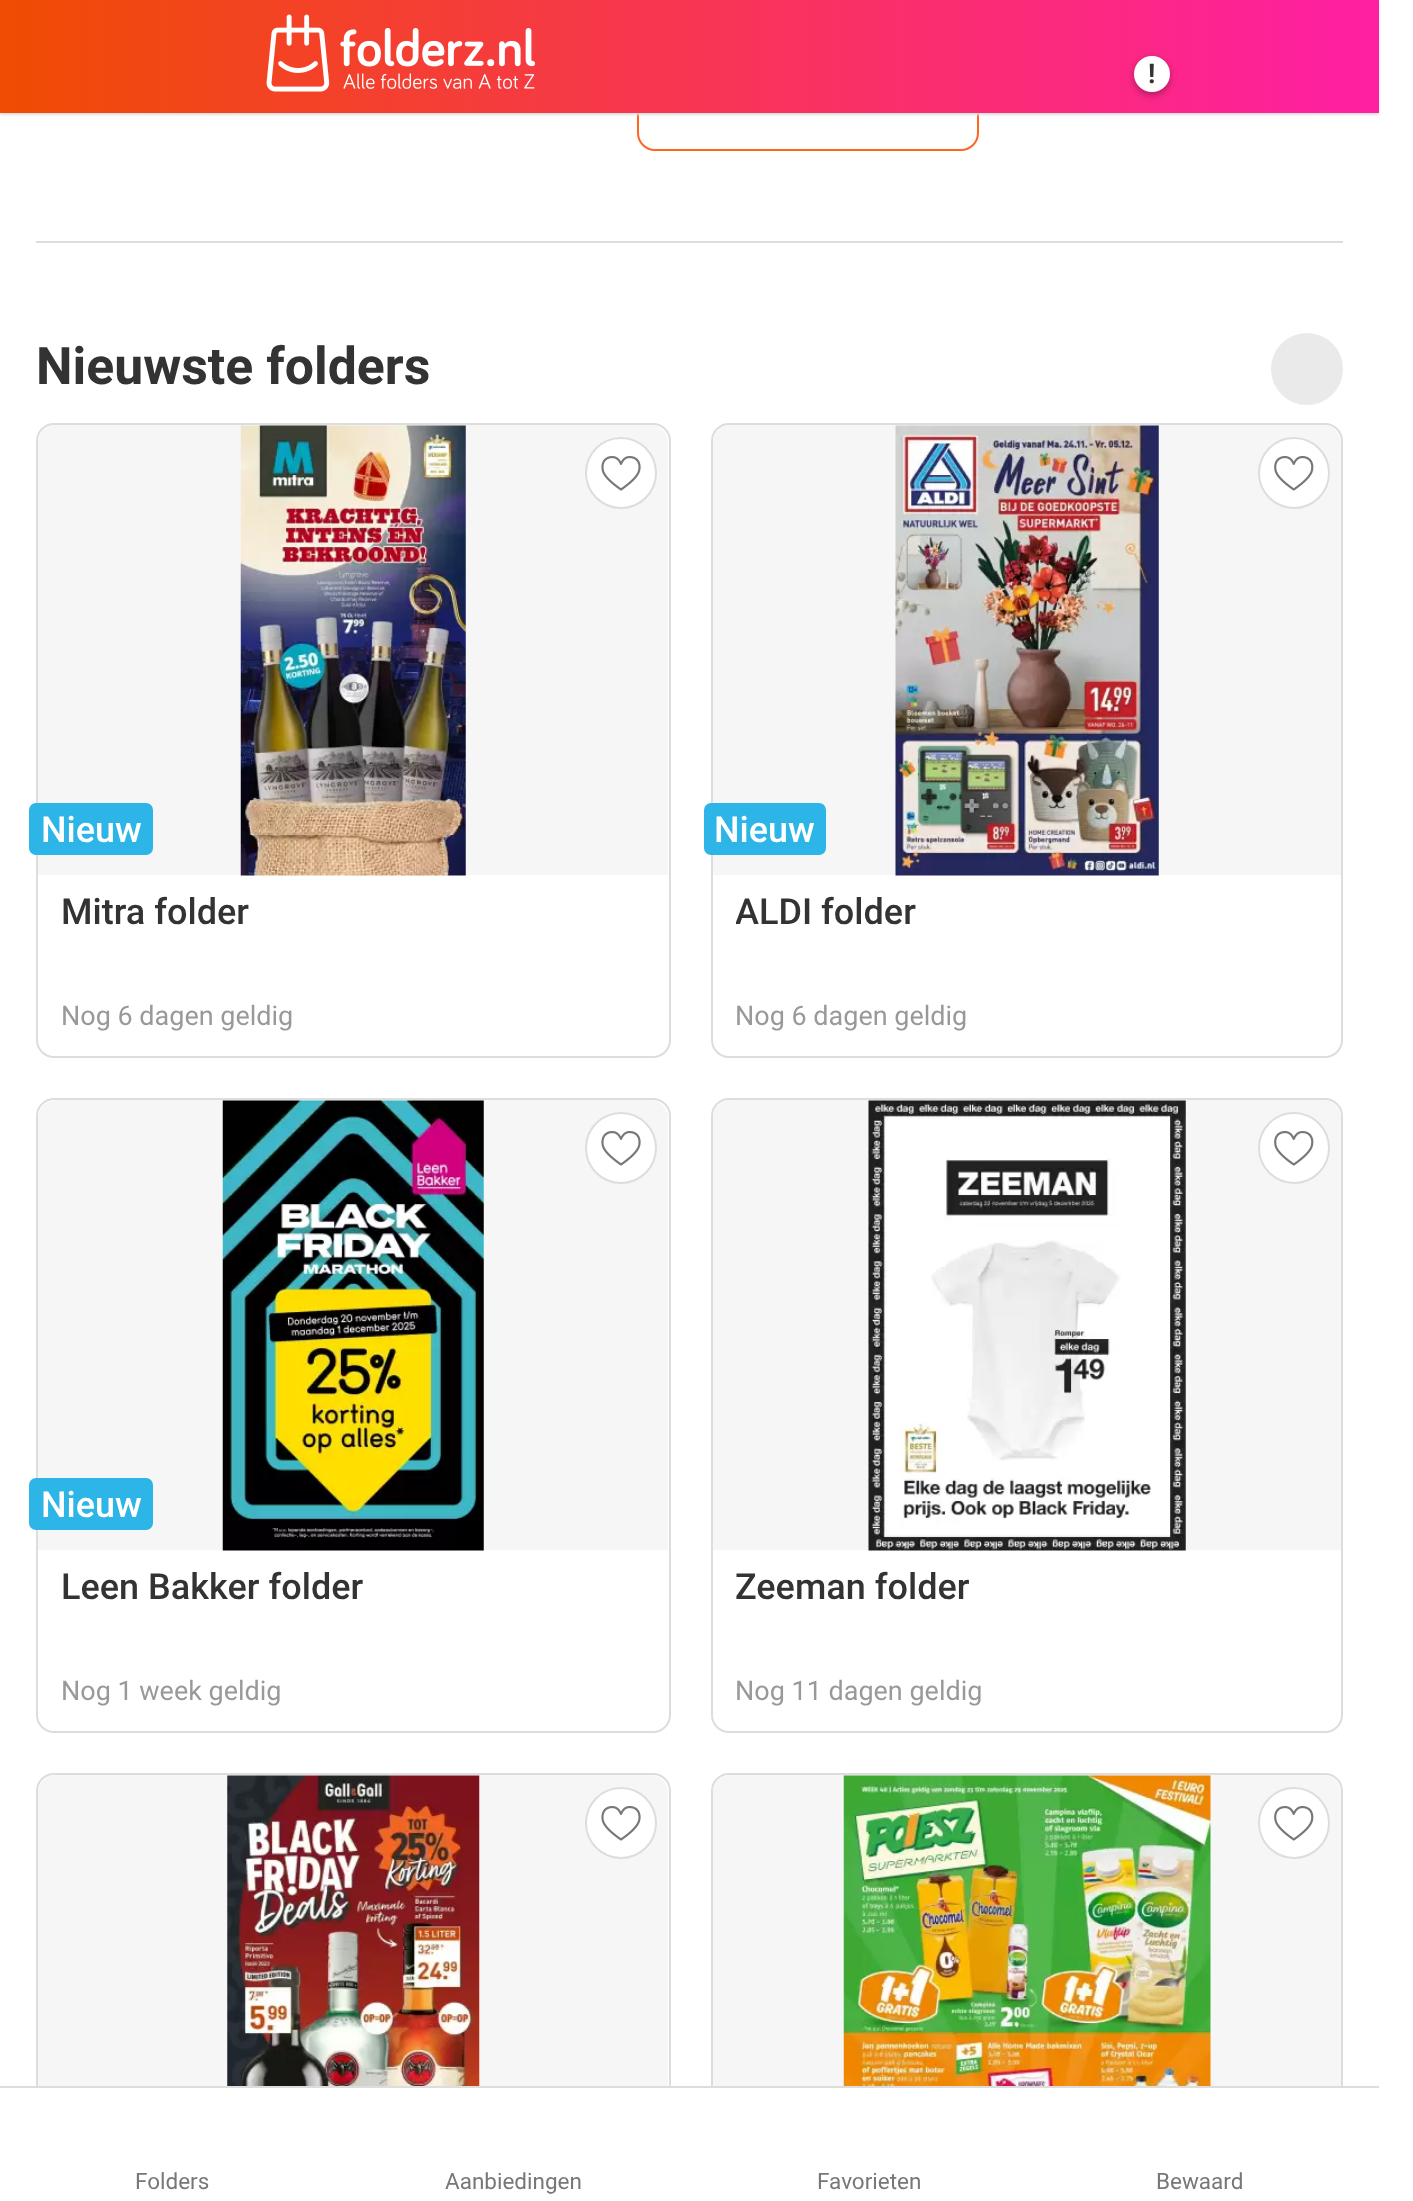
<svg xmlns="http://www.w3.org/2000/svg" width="1413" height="2201">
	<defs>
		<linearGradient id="g1" gradientUnits="userSpaceOnUse" x1="1379" y1="56" x2="0" y2="56"><stop offset="0" stop-color="#FF1FA3" /><stop offset="1" stop-color="#F04C03" /></linearGradient>
		<clipPath id="clip1"><rect x="736" y="891" width="583" height="43" /></clipPath>
	</defs>
	<rect width="100%" height="100%" fill="#FFFFFF" />
	<rect x="638" y="62" width="340" height="88" rx="17" fill="none" stroke="#FF661F" stroke-width="2" />
	<rect x="0" y="2" width="1379" height="113" fill="#DDDDDD" filter="blur(1px)" />
	<rect x="0" y="0" width="1379" height="113" fill="url(#g1)" />
	<image x="266" y="14" width="269" height="78" href="assets/img1.png" />
	<rect x="1134" y="59" width="36" height="36" rx="18" fill="#000000" fill-opacity="0.3" filter="blur(3.5px)" />
	<circle cx="1152" cy="74" r="18" fill="#FFFFFF" />
	<text x="1148" y="83" font-family="Roboto" font-size="27" font-weight="700" fill="#333333">!</text>
	<rect x="36" y="241" width="1307" height="2" fill="#DDDDDD" />
	<text x="36" y="384" font-family="Roboto" font-size="51.75" font-weight="700" fill="#333333">Nieuwste folders</text>
	<circle cx="1307" cy="369" r="35" fill="#EAEAEA" stroke="#EAEAEA" stroke-width="2" />
	<rect x="37" y="424" width="633" height="633" rx="17" fill="none" stroke="#DDDDDD" stroke-width="2" />
	<path d="M56 425H650C660 425 668 433 668 443V875H38V443C38 433 46 425 56 425Z" fill="#F6F6F6" />
	<circle cx="621" cy="473" r="35" fill="#FFFFFF" stroke="#DDDDDD" stroke-width="2" />
	<image x="601" y="456" width="40" height="35" href="assets/img2.png" />
	<image x="240" y="425" width="226" height="451" href="assets/img3.png" />
	<rect x="29" y="803" width="124" height="52" rx="7" fill="#2CB5E6" />
	<text x="41" y="842" font-family="Roboto" font-size="36" font-weight="500" fill="#FFFFFF">Nieuw</text>
	<text x="61" y="924" font-family="Roboto" font-size="36" font-weight="500" fill="#333333">Mitra folder</text>
	<text x="61" y="1025" font-family="Roboto" font-size="27" fill="#999999">Nog 6 dagen geldig</text>
	<rect x="712" y="424" width="630" height="633" rx="17" fill="none" stroke="#DDDDDD" stroke-width="2" />
	<path d="M731 425H1323C1333 425 1341 433 1341 443V875H713V443C713 433 721 425 731 425Z" fill="#F6F6F6" />
	<circle cx="1294" cy="473" r="35" fill="#FFFFFF" stroke="#DDDDDD" stroke-width="2" />
	<image x="1274" y="456" width="40" height="35" href="assets/img4.png" />
	<image x="895" y="425" width="264" height="451" href="assets/img5.png" />
	<rect x="704" y="803" width="122" height="52" rx="7" fill="#2CB5E6" />
	<text x="714" y="842" font-family="Roboto" font-size="36" font-weight="500" fill="#FFFFFF">Nieuw</text>
	<g clip-path="url(#clip1)">
		<text x="735" y="924" font-family="Roboto" font-size="36" font-weight="500" fill="#333333">ALDI folder</text>
	</g>
	<text x="735" y="1025" font-family="Roboto" font-size="27" fill="#999999">Nog 6 dagen geldig</text>
	<rect x="37" y="1099" width="633" height="633" rx="17" fill="none" stroke="#DDDDDD" stroke-width="2" />
	<path d="M56 1100H650C660 1100 668 1108 668 1118V1550H38V1118C38 1108 46 1100 56 1100Z" fill="#F6F6F6" />
	<circle cx="621" cy="1148" r="35" fill="#FFFFFF" stroke="#DDDDDD" stroke-width="2" />
	<image x="601" y="1131" width="40" height="35" href="assets/img2.png" />
	<image x="222" y="1100" width="262" height="451" href="assets/img6.png" />
	<rect x="29" y="1478" width="124" height="52" rx="7" fill="#2CB5E6" />
	<text x="41" y="1517" font-family="Roboto" font-size="36" font-weight="500" fill="#FFFFFF">Nieuw</text>
	<text x="61" y="1599" font-family="Roboto" font-size="36" font-weight="500" fill="#333333">Leen Bakker folder</text>
	<text x="61" y="1700" font-family="Roboto" font-size="27" fill="#999999">Nog 1 week geldig</text>
	<rect x="712" y="1099" width="630" height="633" rx="17" fill="none" stroke="#DDDDDD" stroke-width="2" />
	<path d="M731 1100H1323C1333 1100 1341 1108 1341 1118V1550H713V1118C713 1108 721 1100 731 1100Z" fill="#F6F6F6" />
	<image x="868" y="1100" width="318" height="451" href="assets/img7.png" />
	<circle cx="1294" cy="1148" r="35" fill="#FFFFFF" stroke="#DDDDDD" stroke-width="2" />
	<image x="1274" y="1131" width="40" height="35" href="assets/img4.png" />
	<text x="735" y="1599" font-family="Roboto" font-size="36" font-weight="500" fill="#333333">Zeeman folder</text>
	<text x="735" y="1700" font-family="Roboto" font-size="27" fill="#999999">Nog 11 dagen geldig</text>
	<rect x="37" y="1774" width="633" height="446" rx="17" fill="none" stroke="#DDDDDD" stroke-width="2" />
	<path d="M56 1775H650C660 1775 668 1783 668 1793V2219H38V1793C38 1783 46 1775 56 1775Z" fill="#F6F6F6" />
	<image x="227" y="1775" width="253" height="311" href="assets/img8.png" />
	<circle cx="621" cy="1823" r="35" fill="#FFFFFF" stroke="#DDDDDD" stroke-width="2" />
	<image x="601" y="1806" width="40" height="35" href="assets/img2.png" />
	<rect x="712" y="1774" width="630" height="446" rx="17" fill="none" stroke="#DDDDDD" stroke-width="2" />
	<path d="M731 1775H1323C1333 1775 1341 1783 1341 1793V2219H713V1793C713 1783 721 1775 731 1775Z" fill="#F6F6F6" />
	<image x="843" y="1775" width="368" height="311" href="assets/img9.png" />
	<circle cx="1294" cy="1823" r="35" fill="#FFFFFF" stroke="#DDDDDD" stroke-width="2" />
	<image x="1274" y="1806" width="40" height="35" href="assets/img4.png" />
	<rect x="36" y="2088" width="1307" height="113" fill="#FFFFFF" />
	<rect x="0" y="2086" width="1379" height="2" fill="#DDDDDD" />
	<g font-family="Roboto" font-size="22.5" fill="#777777">
		<text x="135" y="2189">Folders</text>
		<text x="445" y="2189">Aanbiedingen</text>
		<text x="817" y="2189">Favorieten</text>
		<text x="1156" y="2189">Bewaard</text>
	</g>
</svg>
